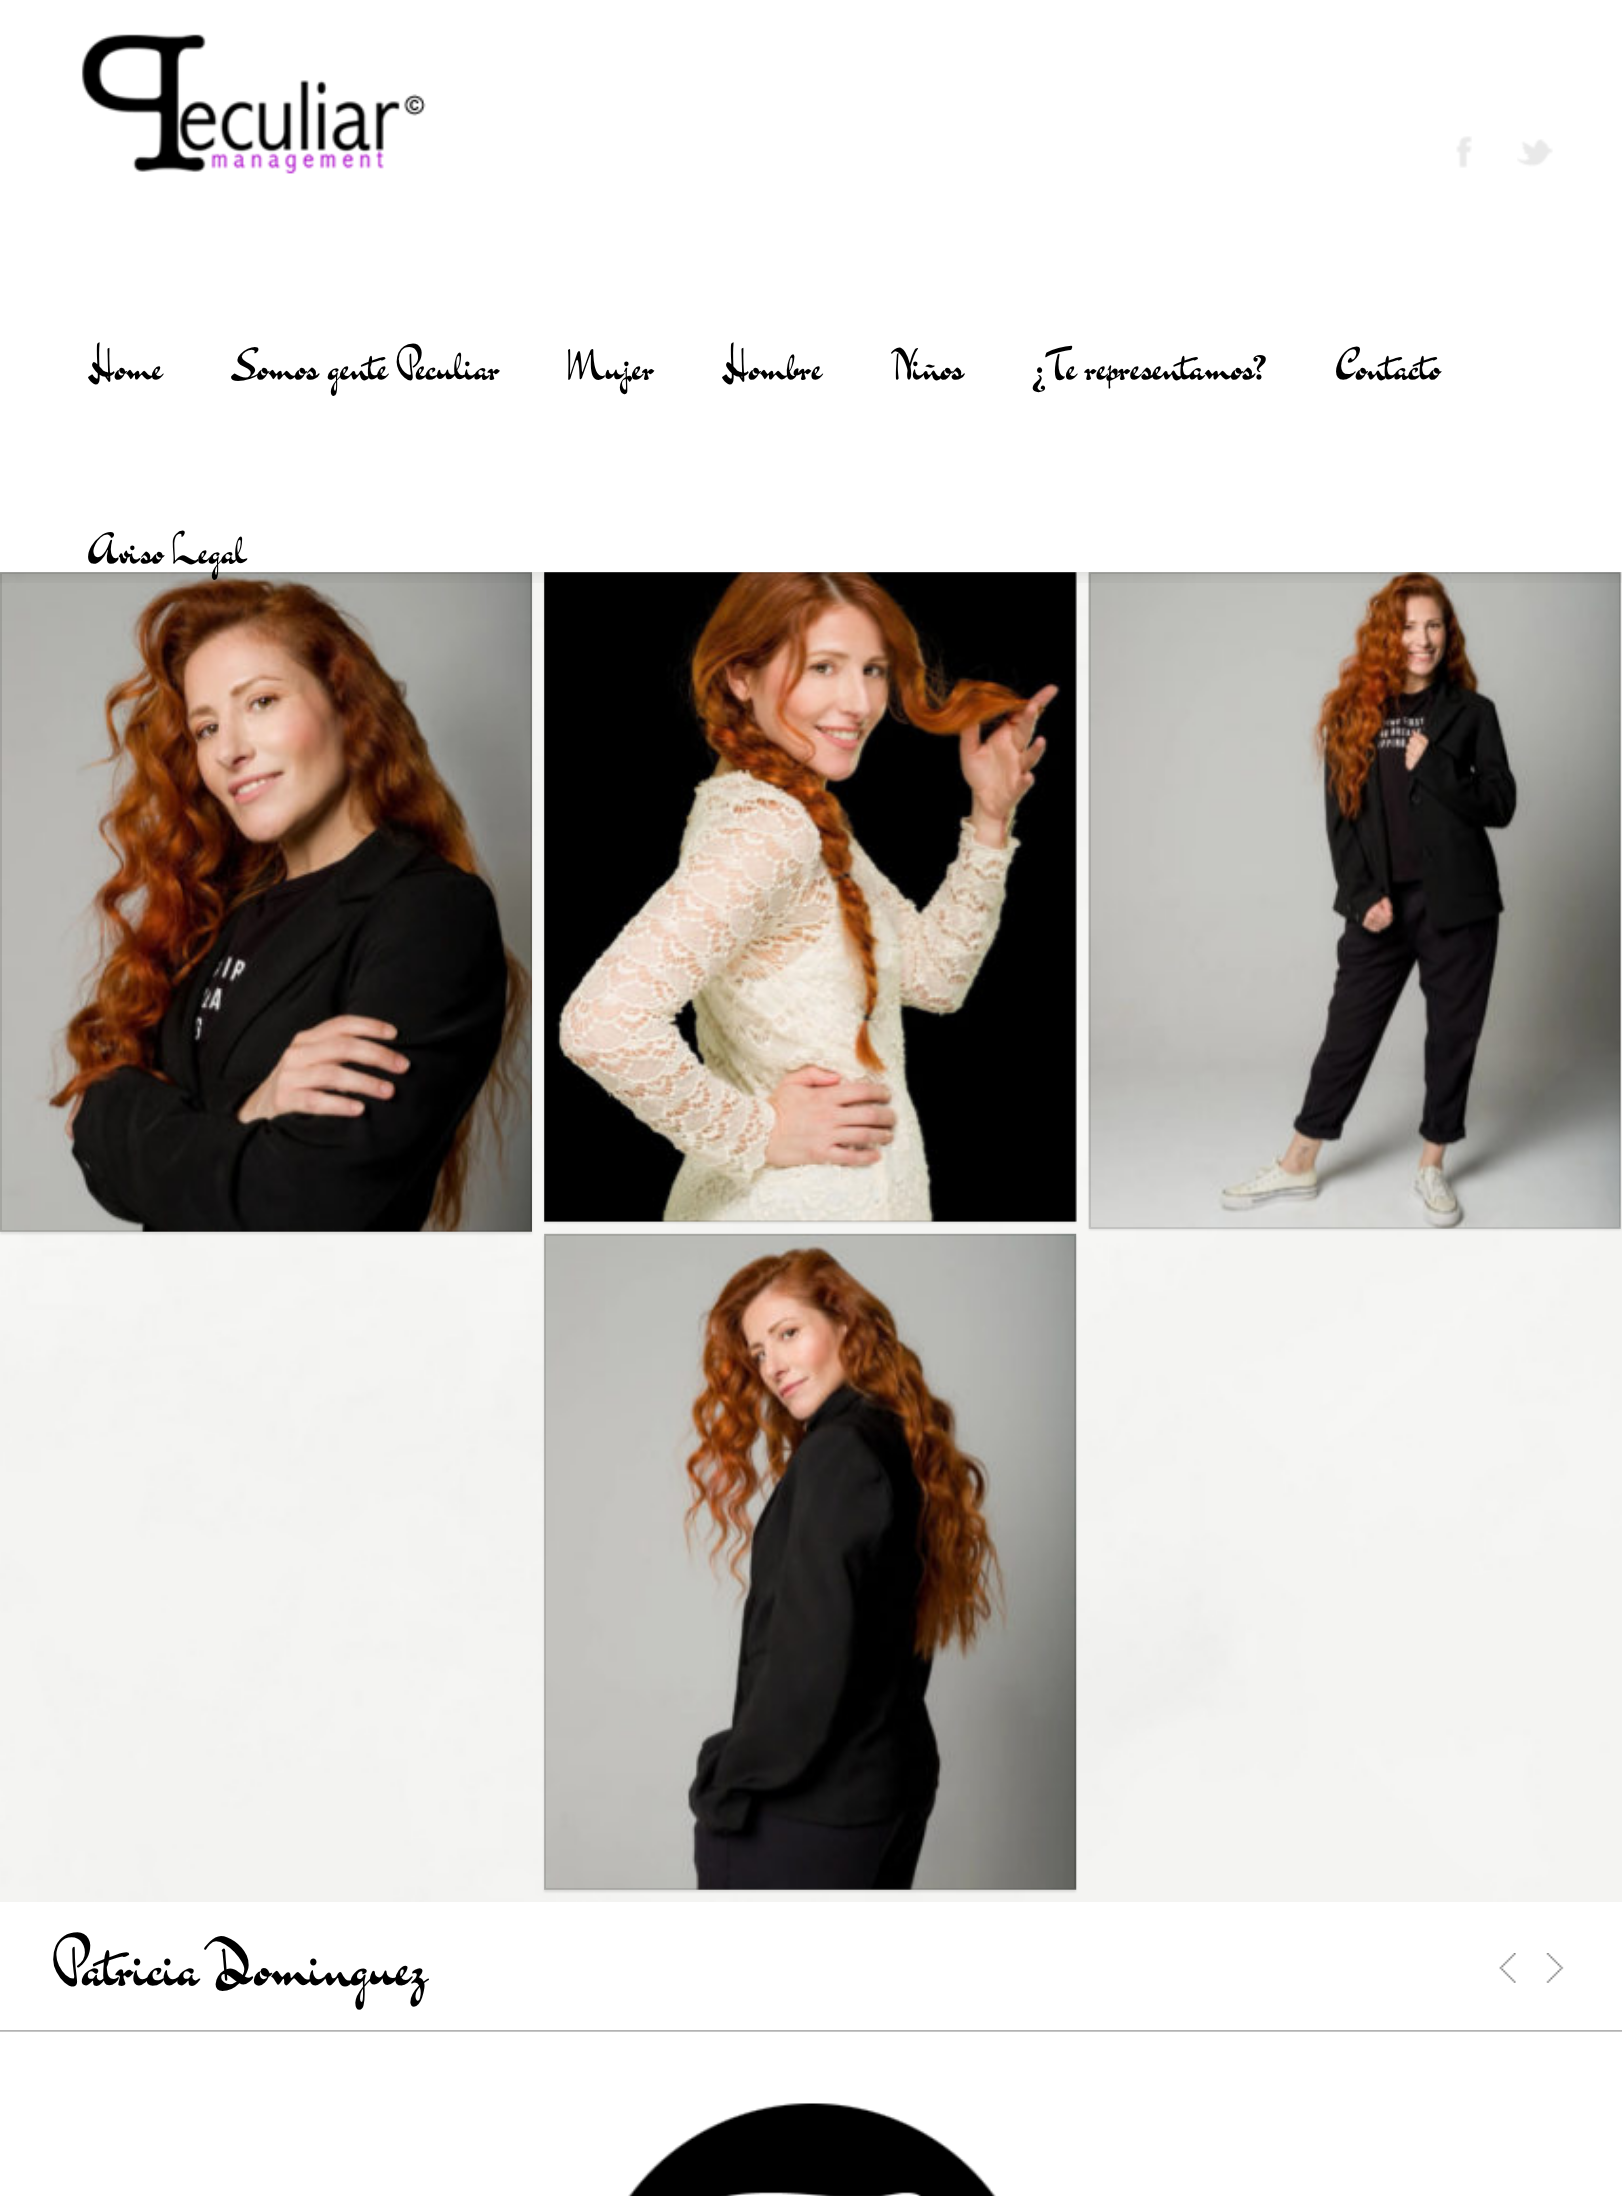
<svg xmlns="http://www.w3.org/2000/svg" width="1622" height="2196">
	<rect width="100%" height="100%" fill="#FFFFFF" />
	<image x="81" y="34" width="345" height="140" href="assets/img1.png" />
	<image x="1456" y="136" width="16" height="32" href="assets/img2.png" />
	<image x="1517" y="139" width="36" height="28" href="assets/img3.png" />
	<g font-family="Dr Sugiyama" font-size="40.25" fill="#000000">
		<text x="88" y="378">Home</text>
		<text x="231" y="378">Somos gente Peculiar</text>
		<text x="568" y="378">Mujer</text>
		<text x="722" y="378">Hombre</text>
		<text x="891" y="378">Niños</text>
		<text x="1033" y="378">¿Te representamos?</text>
		<text x="1336" y="378">Contacto</text>
	</g>
	<image x="0" y="572" width="1622" height="1330" href="assets/img5.png" />
	<rect x="0" y="574" width="532" height="660" fill="#000000" fill-opacity="0.1" filter="blur(1px)" />
	<image x="0" y="572" width="532" height="660" href="assets/img6.png" />
	<rect x="1" y="573" width="530" height="658" fill="none" stroke="#000000" stroke-opacity="0.1" stroke-width="2" />
	<text x="88" y="562" font-family="Dr Sugiyama" font-size="40.25" fill="#000000">Aviso Legal</text>
	<rect x="544" y="574" width="532" height="649" fill="#000000" fill-opacity="0.1" filter="blur(1px)" />
	<image x="544" y="572" width="533" height="650" href="assets/img7.png" />
	<rect x="545" y="573" width="530" height="648" fill="none" stroke="#000000" stroke-opacity="0.1" stroke-width="2" />
	<rect x="1089" y="574" width="532" height="656" fill="#000000" fill-opacity="0.1" filter="blur(1px)" />
	<image x="1088" y="572" width="533" height="657" href="assets/img8.png" />
	<rect x="1090" y="573" width="530" height="655" fill="none" stroke="#000000" stroke-opacity="0.1" stroke-width="2" />
	<image x="0" y="572" width="1622" height="11" href="assets/img4.png" />
	<rect x="544" y="1236" width="532" height="656" fill="#000000" fill-opacity="0.1" filter="blur(1px)" />
	<image x="544" y="1233" width="533" height="657" href="assets/img9.png" />
	<rect x="545" y="1235" width="530" height="654" fill="none" stroke="#000000" stroke-opacity="0.1" stroke-width="2" />
	<image x="0" y="2030" width="1622" height="2" href="assets/img10.png" />
	<text x="53" y="1983" font-family="Dr Sugiyama" font-size="59.5" fill="#000000">Patricia Dominguez</text>
	<image x="1499" y="1953" width="17" height="30" href="assets/img11.png" />
	<image x="1546" y="1953" width="18" height="30" href="assets/img12.png" />
	<image x="628" y="2103" width="368" height="93" href="assets/img13.png" />
</svg>
